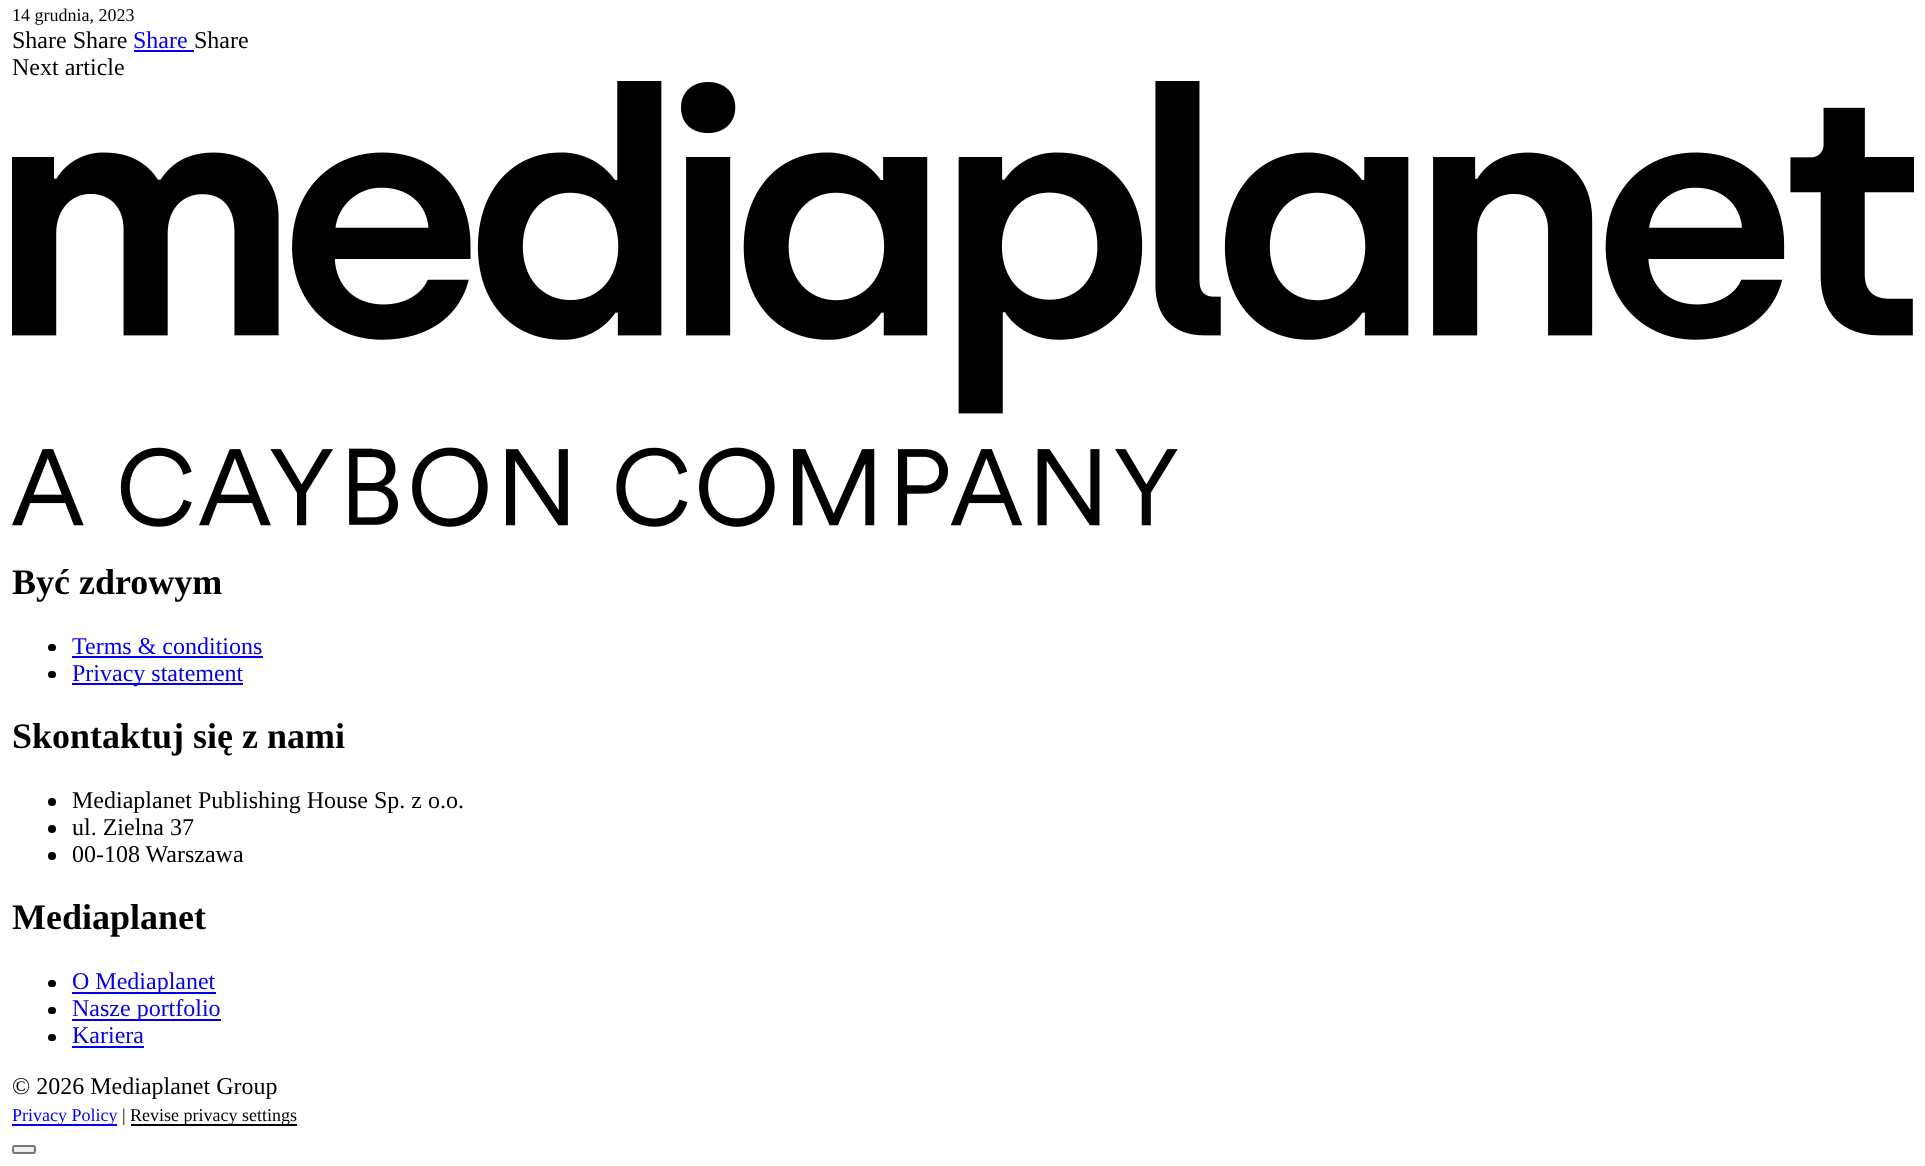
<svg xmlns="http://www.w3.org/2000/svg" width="1925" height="1166">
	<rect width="100%" height="100%" fill="#FFFFFF" />
	<text x="12" y="21" font-family="Liberation Serif" font-size="18" fill="#000000">14 grudnia, 2023</text>
	<text x="12" y="48" font-family="Liberation Serif" font-size="24" fill="#000000">Share Share</text>
	<text x="133" y="48" font-family="Liberation Serif" font-size="24" fill="#0000EE">Share</text>
	<rect x="134" y="50" width="60" height="2" fill="#0000EE" />
	<g font-family="Liberation Serif" font-size="24" fill="#000000">
		<text x="194" y="48">Share</text>
		<text x="12" y="75">Next article</text>
	</g>
	<image x="12" y="81" width="1902" height="446" href="assets/img1.png" />
	<text x="12" y="594" font-family="Liberation Serif" font-size="36" font-weight="700" fill="#000000">Być zdrowym</text>
	<rect x="48" y="644" width="8" height="7" rx="3.5" fill="#000000" />
	<text x="72" y="654" font-family="Liberation Serif" font-size="24" fill="#0000EE">Terms &amp; conditions</text>
	<rect x="72" y="656" width="191" height="2" fill="#0000EE" />
	<rect x="48" y="671" width="8" height="7" rx="3.5" fill="#000000" />
	<rect x="72" y="683" width="171" height="2" fill="#0000EE" />
	<text x="72" y="681" font-family="Liberation Serif" font-size="24" fill="#0000EE">Privacy statement</text>
	<text x="12" y="748" font-family="Liberation Serif" font-size="36" font-weight="700" fill="#000000">Skontaktuj się z nami</text>
	<circle cx="52" cy="802" r="4" fill="#000000" />
	<text x="72" y="808" font-family="Liberation Serif" font-size="24" fill="#000000">Mediaplanet Publishing House Sp. z o.o.</text>
	<circle cx="52" cy="829" r="4" fill="#000000" />
	<text x="72" y="835" font-family="Liberation Serif" font-size="24" fill="#000000">ul. Zielna 37</text>
	<circle cx="52" cy="856" r="4" fill="#000000" />
	<text x="72" y="862" font-family="Liberation Serif" font-size="24" fill="#000000">00-108 Warszawa</text>
	<text x="12" y="929" font-family="Liberation Serif" font-size="36" font-weight="700" fill="#000000">Mediaplanet</text>
	<rect x="48" y="980" width="8" height="7" rx="3.5" fill="#000000" />
	<rect x="72" y="992" width="144" height="2" fill="#0000EE" />
	<text x="72" y="989" font-family="Liberation Serif" font-size="24" fill="#0000EE">O Mediaplanet</text>
	<rect x="48" y="1007" width="8" height="7" rx="3.5" fill="#000000" />
	<rect x="72" y="1019" width="149" height="2" fill="#0000EE" />
	<text x="72" y="1016" font-family="Liberation Serif" font-size="24" fill="#0000EE">Nasze portfolio</text>
	<rect x="48" y="1034" width="8" height="7" rx="3.5" fill="#000000" />
	<text x="72" y="1043" font-family="Liberation Serif" font-size="24" fill="#0000EE">Kariera</text>
	<rect x="72" y="1046" width="72" height="2" fill="#0000EE" />
	<text x="12" y="1094" font-family="Liberation Serif" font-size="24" fill="#000000">© 2026 Mediaplanet Group</text>
	<rect x="12" y="1124" width="105" height="2" fill="#0000EE" />
	<text x="12" y="1121" font-family="Liberation Serif" font-size="18" fill="#0000EE">Privacy Policy</text>
	<text x="122" y="1121" font-family="Liberation Serif" font-size="18" fill="#000000">|</text>
	<rect x="131" y="1124" width="166" height="2" fill="#000000" />
	<text x="130" y="1121" font-family="Liberation Serif" font-size="18" fill="#000000">Revise privacy settings</text>
	<rect x="13" y="1146" width="22" height="7" rx="2" fill="#EFEFEF" stroke="#767676" stroke-width="2" />
</svg>
